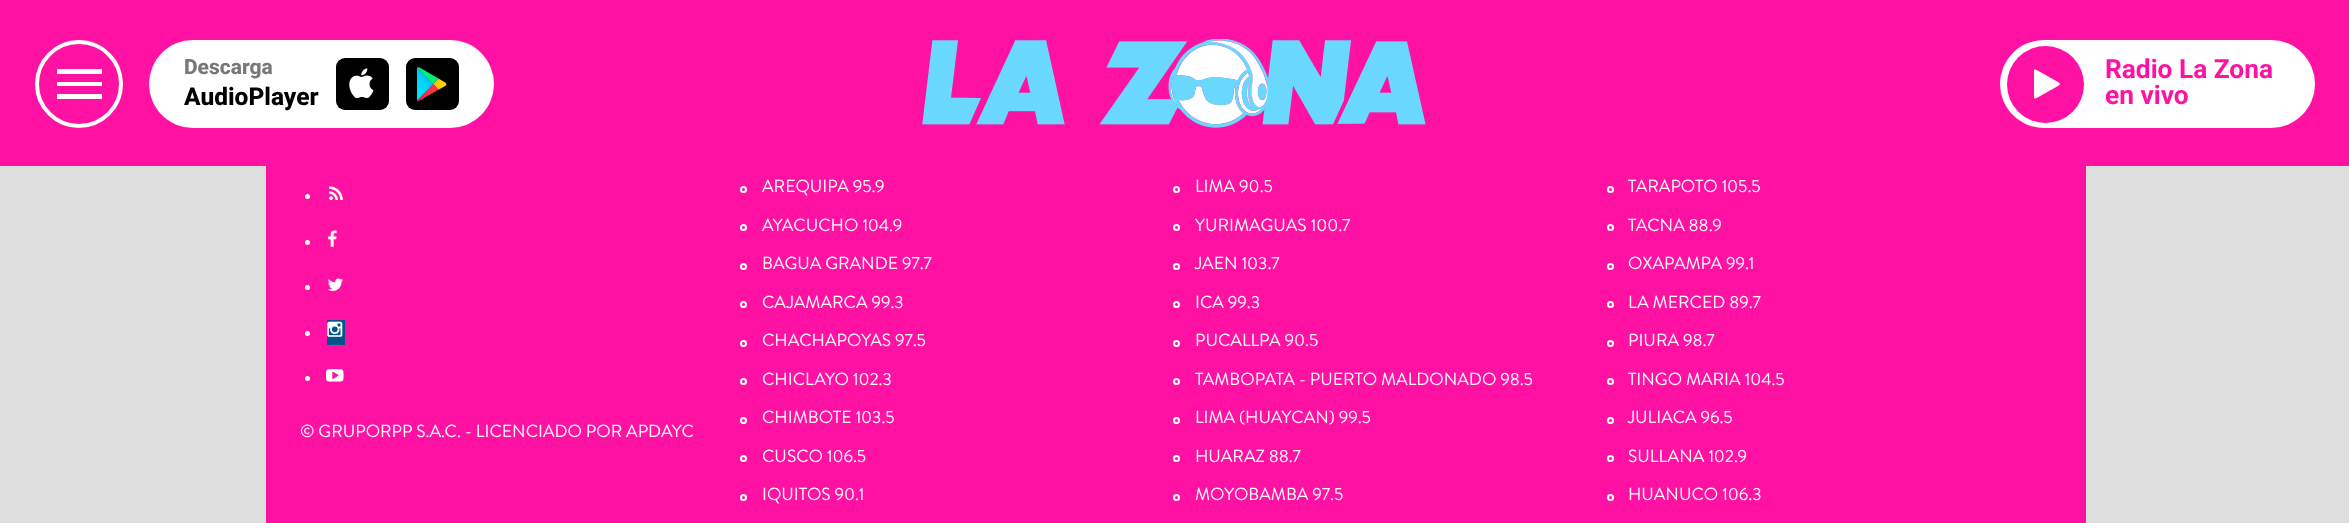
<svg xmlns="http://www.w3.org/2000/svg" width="2349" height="523">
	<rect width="100%" height="100%" fill="#DDDDDD" />
	<rect x="0" y="0" width="2349" height="166" fill="#FF11A3" />
	<circle cx="79" cy="84" r="42" fill="none" stroke="#FFFFFF" stroke-width="4" />
	<path d="M57 69H102V74H57ZM57 82H102V86H57ZM57 94H102V99H57Z" fill="#FFFFFF" />
	<rect x="149" y="40" width="345" height="88" rx="44" fill="#FFFFFF" />
	<text x="184" y="74" font-family="Roboto" font-size="21" font-weight="800" fill="#787878">Descarga</text>
	<text x="184" y="105" font-family="Roboto" font-size="24.5" font-weight="800" fill="#000000">AudioPlayer</text>
	<rect x="336" y="58" width="53" height="52" rx="9" fill="#000000" />
	<image x="349" y="68" width="25" height="31" href="assets/img1.png" />
	<rect x="406" y="58" width="53" height="52" rx="9" fill="#000000" />
	<image x="417" y="67" width="30" height="34" href="assets/img2.png" />
	<image x="922" y="39" width="504" height="89" href="assets/img3.png" />
	<rect x="2000" y="40" width="315" height="88" rx="44" fill="#FFFFFF" />
	<circle cx="2045.5" cy="84.5" r="38.5" fill="#FF11A3" />
	<image x="2034" y="69" width="26" height="30" href="assets/img4.png" />
	<g font-family="Roboto" font-size="26.25" font-weight="700" fill="#FF11A3">
		<text x="2105" y="78">Radio La Zona</text>
		<text x="2105" y="104">en vivo</text>
	</g>
	<rect x="266" y="166" width="1820" height="357" fill="#FF11A3" />
	<circle cx="307.5" cy="196.5" r="2.5" fill="#FFFFFF" />
	<image x="329" y="186" width="14" height="14" href="assets/img5.png" />
	<circle cx="307.5" cy="242.5" r="2.5" fill="#FFFFFF" />
	<image x="328" y="230" width="9" height="17" href="assets/img6.png" />
	<circle cx="307.5" cy="287.5" r="2.5" fill="#FFFFFF" />
	<image x="327" y="278" width="16" height="13" href="assets/img7.png" />
	<circle cx="307.5" cy="333.5" r="2.5" fill="#FFFFFF" />
	<rect x="327" y="320" width="18" height="25" fill="#02548C" />
	<text x="326" y="337" font-family="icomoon" font-size="17.5" fill="#FFFFFF">:</text>
	<circle cx="307.5" cy="378.5" r="2.5" fill="#FFFFFF" />
	<text x="326" y="383" font-family="icomoon" font-size="17.5" fill="#FFFFFF">{</text>
	<text x="300" y="437" font-family="Brandon Grotesque" font-size="17.5" fill="#FFFFFF">© GRUPORPP S.A.C. - LICENCIADO POR APDAYC</text>
	<circle cx="743.5" cy="189.5" r="2.5" fill="none" stroke="#FFFFFF" stroke-width="2" />
	<text x="762" y="192" font-family="Brandon Grotesque" font-size="17.5" fill="#FFFFFF">AREQUIPA 95.9</text>
	<circle cx="743.5" cy="227.5" r="2.5" fill="none" stroke="#FFFFFF" stroke-width="2" />
	<text x="762" y="231" font-family="Brandon Grotesque" font-size="17.5" fill="#FFFFFF">AYACUCHO 104.9</text>
	<circle cx="743.5" cy="266.5" r="2.5" fill="none" stroke="#FFFFFF" stroke-width="2" />
	<text x="762" y="269" font-family="Brandon Grotesque" font-size="17.5" fill="#FFFFFF">BAGUA GRANDE 97.7</text>
	<circle cx="743.5" cy="304.5" r="2.5" fill="none" stroke="#FFFFFF" stroke-width="2" />
	<text x="762" y="308" font-family="Brandon Grotesque" font-size="17.5" fill="#FFFFFF">CAJAMARCA 99.3</text>
	<circle cx="743.5" cy="343.5" r="2.5" fill="none" stroke="#FFFFFF" stroke-width="2" />
	<text x="762" y="346" font-family="Brandon Grotesque" font-size="17.5" fill="#FFFFFF">CHACHAPOYAS 97.5</text>
	<circle cx="743.5" cy="381.5" r="2.5" fill="none" stroke="#FFFFFF" stroke-width="2" />
	<text x="762" y="385" font-family="Brandon Grotesque" font-size="17.5" fill="#FFFFFF">CHICLAYO 102.3</text>
	<circle cx="743.5" cy="420.5" r="2.5" fill="none" stroke="#FFFFFF" stroke-width="2" />
	<text x="762" y="423" font-family="Brandon Grotesque" font-size="17.5" fill="#FFFFFF">CHIMBOTE 103.5</text>
	<circle cx="743.5" cy="458.5" r="2.5" fill="none" stroke="#FFFFFF" stroke-width="2" />
	<text x="762" y="462" font-family="Brandon Grotesque" font-size="17.5" fill="#FFFFFF">CUSCO 106.5</text>
	<circle cx="743.5" cy="497.5" r="2.5" fill="none" stroke="#FFFFFF" stroke-width="2" />
	<text x="762" y="500" font-family="Brandon Grotesque" font-size="17.5" fill="#FFFFFF">IQUITOS 90.1</text>
	<circle cx="1176.5" cy="189.5" r="2.5" fill="none" stroke="#FFFFFF" stroke-width="2" />
	<text x="1195" y="192" font-family="Brandon Grotesque" font-size="17.5" fill="#FFFFFF">LIMA 90.5</text>
	<circle cx="1176.5" cy="227.5" r="2.5" fill="none" stroke="#FFFFFF" stroke-width="2" />
	<text x="1195" y="231" font-family="Brandon Grotesque" font-size="17.5" fill="#FFFFFF">YURIMAGUAS 100.7</text>
	<circle cx="1176.5" cy="266.5" r="2.5" fill="none" stroke="#FFFFFF" stroke-width="2" />
	<text x="1195" y="269" font-family="Brandon Grotesque" font-size="17.5" fill="#FFFFFF">JAEN 103.7</text>
	<circle cx="1176.5" cy="304.5" r="2.5" fill="none" stroke="#FFFFFF" stroke-width="2" />
	<text x="1195" y="308" font-family="Brandon Grotesque" font-size="17.5" fill="#FFFFFF">ICA 99.3</text>
	<circle cx="1176.5" cy="343.5" r="2.5" fill="none" stroke="#FFFFFF" stroke-width="2" />
	<text x="1195" y="346" font-family="Brandon Grotesque" font-size="17.5" fill="#FFFFFF">PUCALLPA 90.5</text>
	<circle cx="1176.5" cy="381.5" r="2.5" fill="none" stroke="#FFFFFF" stroke-width="2" />
	<text x="1195" y="385" font-family="Brandon Grotesque" font-size="17.5" fill="#FFFFFF">TAMBOPATA - PUERTO MALDONADO 98.5</text>
	<circle cx="1176.5" cy="420.5" r="2.5" fill="none" stroke="#FFFFFF" stroke-width="2" />
	<text x="1195" y="423" font-family="Brandon Grotesque" font-size="17.5" fill="#FFFFFF">LIMA (HUAYCAN) 99.5</text>
	<circle cx="1176.5" cy="458.5" r="2.5" fill="none" stroke="#FFFFFF" stroke-width="2" />
	<text x="1195" y="462" font-family="Brandon Grotesque" font-size="17.5" fill="#FFFFFF">HUARAZ 88.7</text>
	<circle cx="1176.5" cy="497.5" r="2.5" fill="none" stroke="#FFFFFF" stroke-width="2" />
	<text x="1195" y="500" font-family="Brandon Grotesque" font-size="17.5" fill="#FFFFFF">MOYOBAMBA 97.5</text>
	<circle cx="1610.5" cy="189.5" r="2.5" fill="none" stroke="#FFFFFF" stroke-width="2" />
	<text x="1628" y="192" font-family="Brandon Grotesque" font-size="17.5" fill="#FFFFFF">TARAPOTO 105.5</text>
	<circle cx="1610.5" cy="227.5" r="2.5" fill="none" stroke="#FFFFFF" stroke-width="2" />
	<text x="1628" y="231" font-family="Brandon Grotesque" font-size="17.5" fill="#FFFFFF">TACNA 88.9</text>
	<circle cx="1610.5" cy="266.5" r="2.5" fill="none" stroke="#FFFFFF" stroke-width="2" />
	<text x="1628" y="269" font-family="Brandon Grotesque" font-size="17.5" fill="#FFFFFF">OXAPAMPA 99.1</text>
	<circle cx="1610.5" cy="304.5" r="2.5" fill="none" stroke="#FFFFFF" stroke-width="2" />
	<text x="1628" y="308" font-family="Brandon Grotesque" font-size="17.5" fill="#FFFFFF">LA MERCED 89.7</text>
	<circle cx="1610.5" cy="343.5" r="2.5" fill="none" stroke="#FFFFFF" stroke-width="2" />
	<text x="1628" y="346" font-family="Brandon Grotesque" font-size="17.5" fill="#FFFFFF">PIURA 98.7</text>
	<circle cx="1610.5" cy="381.5" r="2.5" fill="none" stroke="#FFFFFF" stroke-width="2" />
	<text x="1628" y="385" font-family="Brandon Grotesque" font-size="17.5" fill="#FFFFFF">TINGO MARIA 104.5</text>
	<circle cx="1610.5" cy="420.5" r="2.5" fill="none" stroke="#FFFFFF" stroke-width="2" />
	<text x="1628" y="423" font-family="Brandon Grotesque" font-size="17.5" fill="#FFFFFF">JULIACA 96.5</text>
	<circle cx="1610.5" cy="458.5" r="2.5" fill="none" stroke="#FFFFFF" stroke-width="2" />
	<text x="1628" y="462" font-family="Brandon Grotesque" font-size="17.5" fill="#FFFFFF">SULLANA 102.9</text>
	<circle cx="1610.5" cy="497.5" r="2.5" fill="none" stroke="#FFFFFF" stroke-width="2" />
	<text x="1628" y="500" font-family="Brandon Grotesque" font-size="17.5" fill="#FFFFFF">HUANUCO 106.3</text>
</svg>
